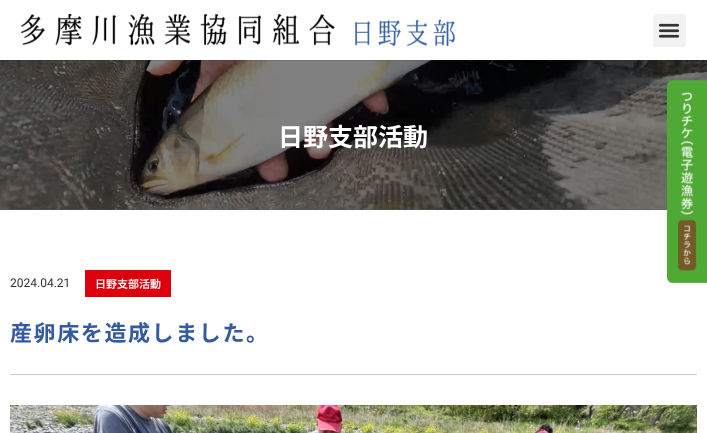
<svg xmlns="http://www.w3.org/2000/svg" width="707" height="433">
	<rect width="100%" height="100%" fill="#FFFFFF" />
	<image x="21" y="14" width="434" height="32" href="assets/img1.png" />
	<rect x="653" y="14" width="33" height="33" rx="3" fill="#F2F2F2" />
	<image x="658" y="23" width="22" height="15" href="assets/img2.png" />
	<image x="0" y="60" width="707" height="150" href="assets/img3.png" />
	<text x="278" y="146" font-family="Noto Sans JP" font-size="25" font-weight="700" fill="#FFFFFF">日野支部活動</text>
	<text x="10" y="287" font-family="Roboto" font-size="12" fill="#333333">2024.04.21</text>
	<rect x="85" y="270" width="86" height="27" fill="#DC000C" />
	<text x="95" y="288" font-family="Noto Sans JP" font-size="11" font-weight="600" fill="#FFFFFF">日野支部活動</text>
	<text x="10" y="341" font-family="Noto Sans JP" font-size="22" font-weight="700" letter-spacing="1.6" fill="#355A9F">産卵床を造成しました。</text>
	<rect x="10" y="374" width="687" height="1" fill="#CCCCCC" />
	<image x="10" y="405" width="687" height="28" href="assets/img4.png" />
	<image x="667" y="79" width="40" height="204" href="assets/img5.png" />
</svg>
